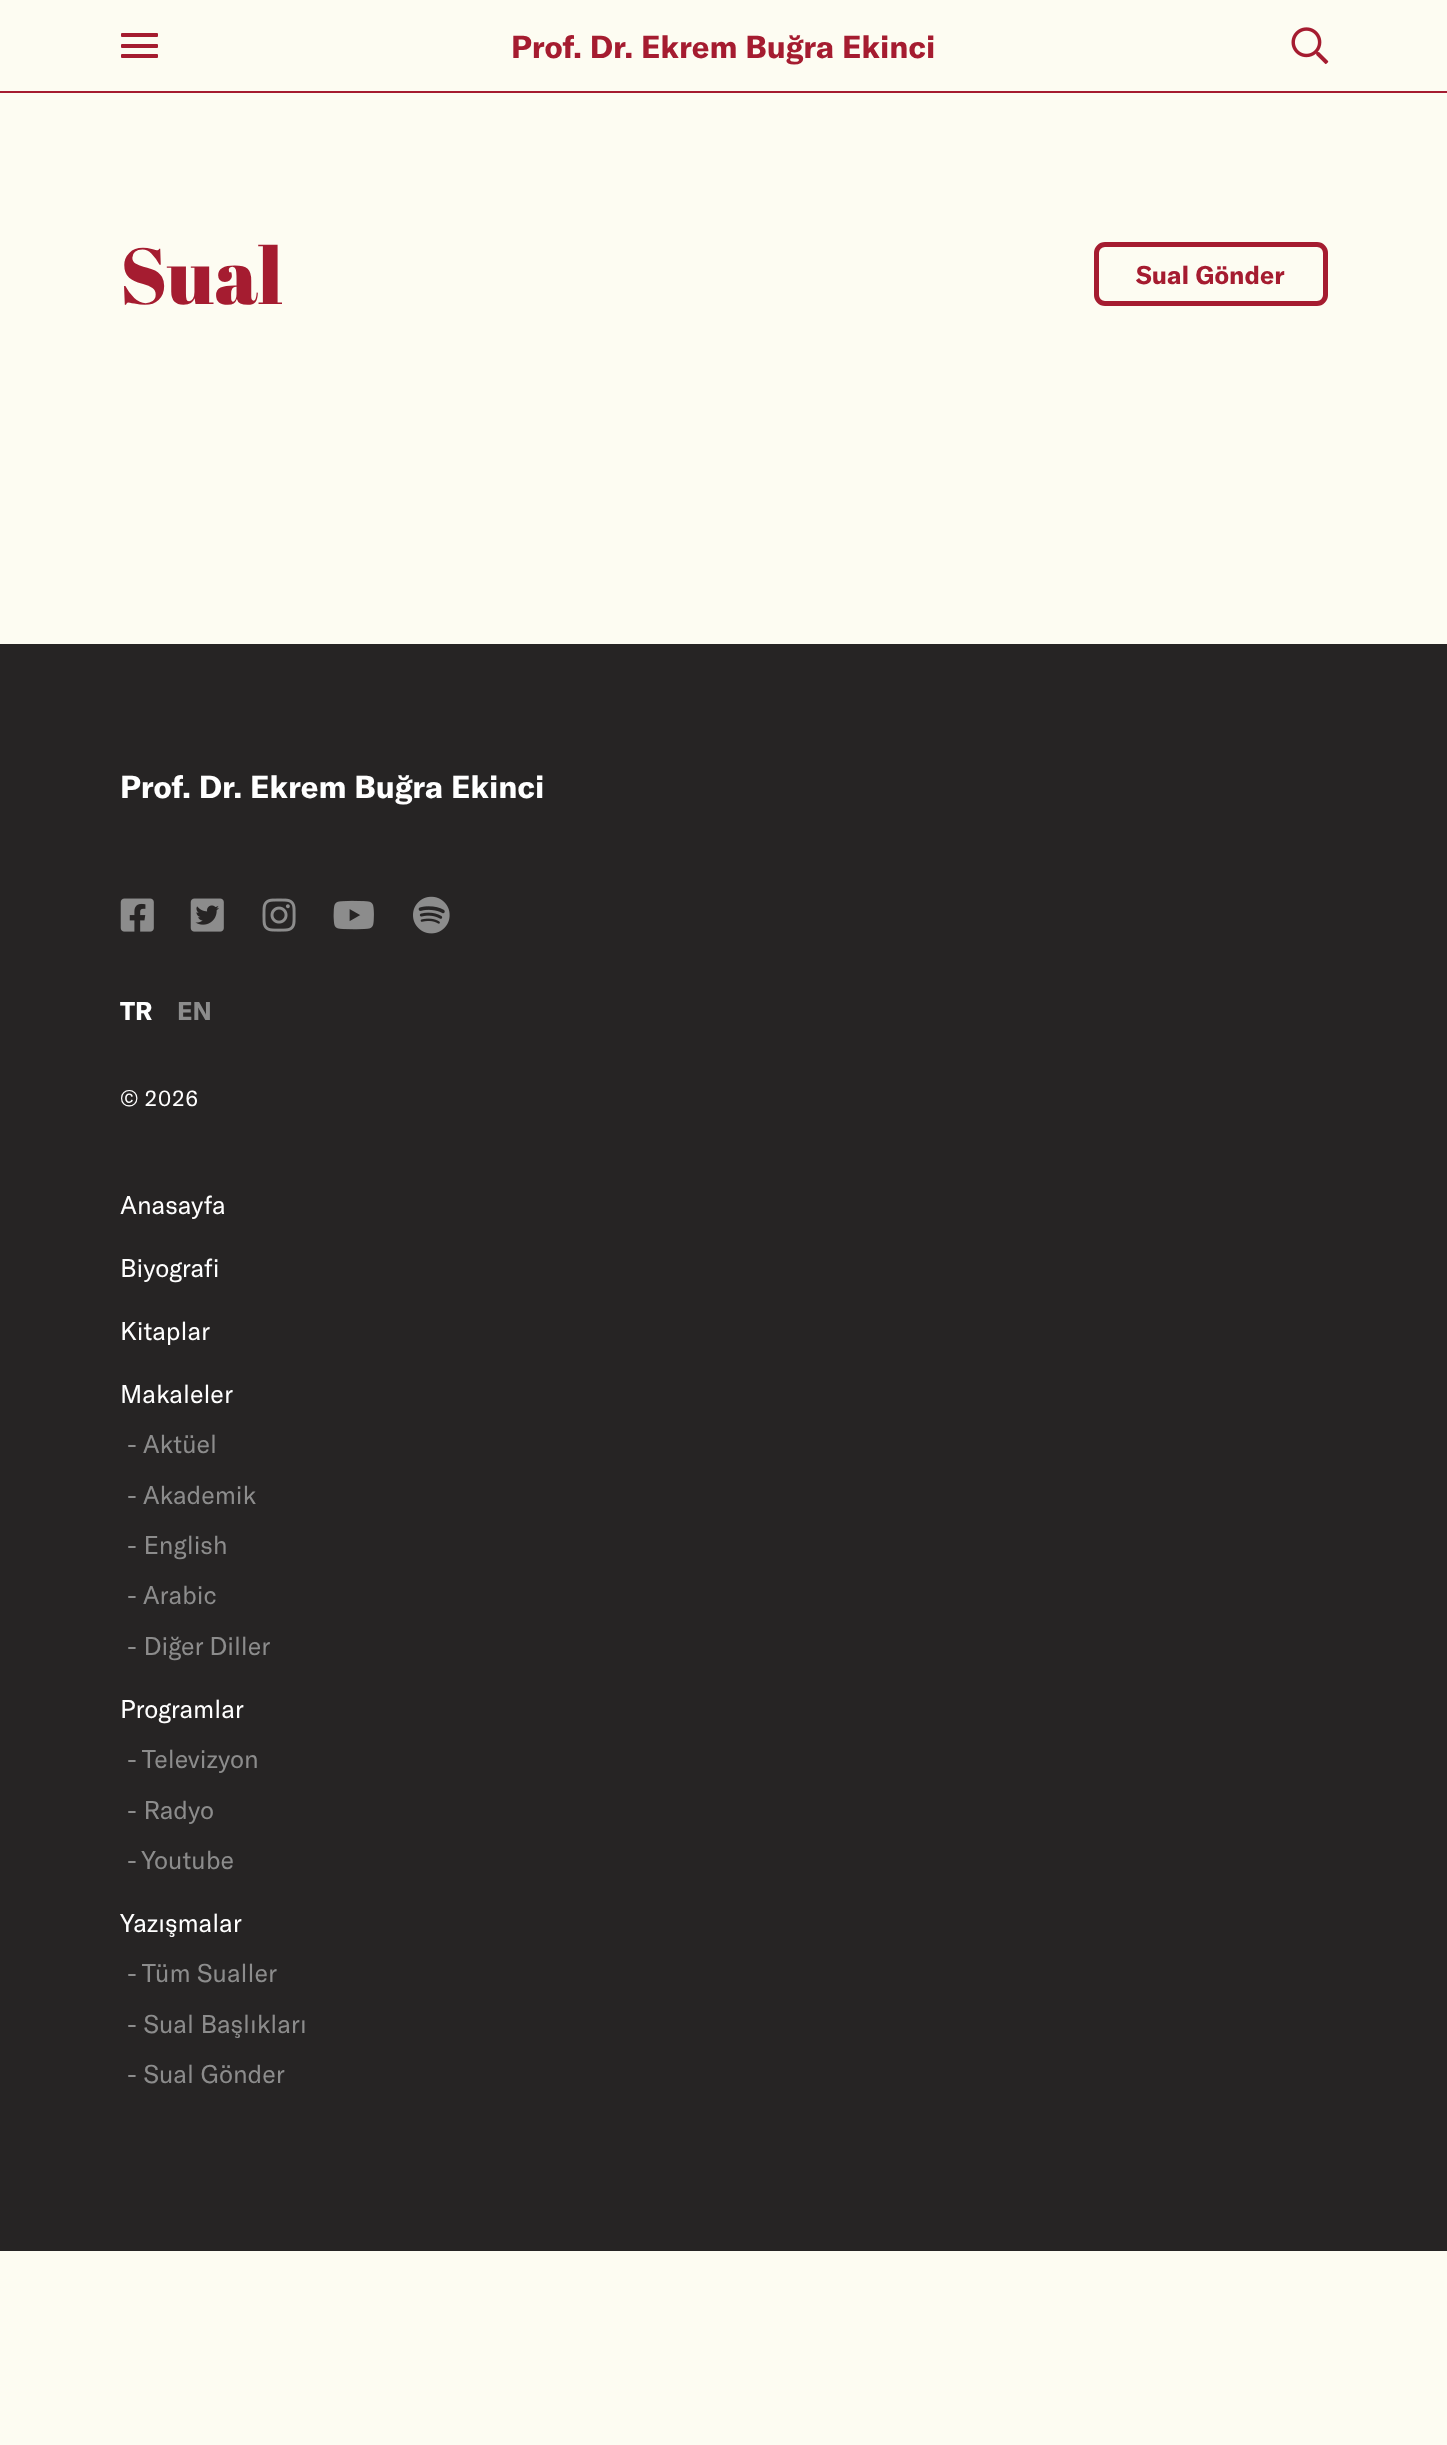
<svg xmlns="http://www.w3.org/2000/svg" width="1447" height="2445">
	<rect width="100%" height="100%" fill="#FDFCF2" />
	<rect x="0" y="91" width="1447" height="2" fill="#A51C30" />
	<rect x="121" y="54" width="37" height="4" rx="1" fill="#A51C30" />
	<rect x="121" y="33" width="37" height="4" rx="1" fill="#A51C30" />
	<rect x="121" y="44" width="37" height="4" rx="1" fill="#A51C30" />
	<text x="511" y="58" font-family="GT America" font-size="31.5" font-weight="700" fill="#A51C30">Prof. Dr. Ekrem Buğra Ekinci</text>
	<image x="1291" y="27" width="38" height="38" href="assets/img1.png" />
	<text x="120" y="304" font-family="Abril Fatface" font-size="79" fill="#A51C30">Sual</text>
	<rect x="1096.5" y="244.5" width="229" height="59" rx="8.5" fill="none" stroke="#A51C30" stroke-width="5" />
	<text x="1136" y="284" font-family="GT America" font-size="25.25" font-weight="700" fill="#A51C30">Sual Gönder</text>
	<rect x="0" y="644" width="1447" height="1607" fill="#262424" />
	<text x="120" y="798" font-family="GT America" font-size="31.5" font-weight="700" fill="#FFFFFF">Prof. Dr. Ekrem Buğra Ekinci</text>
	<image x="120" y="898" width="34" height="34" href="assets/img2.png" />
	<image x="190" y="898" width="34" height="34" href="assets/img3.png" />
	<image x="262" y="898" width="34" height="34" href="assets/img4.png" />
	<image x="333" y="900" width="41" height="30" href="assets/img5.png" />
	<image x="413" y="896" width="37" height="38" href="assets/img6.png" />
	<text x="120" y="1020" font-family="GT America" font-size="25.25" font-weight="700" fill="#FFFFFF">TR</text>
	<text x="177" y="1020" font-family="GT America" font-size="25.25" font-weight="700" fill="#8C8C8C">EN</text>
	<text x="120" y="1106" font-family="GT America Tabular" font-size="22" fill="#FFFFFF">© 2026</text>
	<g font-family="GT America" font-size="25.25" fill="#FFFFFF">
		<text x="120" y="1214">Anasayfa</text>
		<text x="120" y="1277">Biyografi</text>
		<text x="120" y="1340">Kitaplar</text>
		<text x="120" y="1403">Makaleler</text>
	</g>
	<g font-family="GT America" font-size="25.25" fill="#8C8C8C">
		<text x="127" y="1453">- Aktüel</text>
		<text x="127" y="1504">- Akademik</text>
		<text x="127" y="1554">- English</text>
		<text x="127" y="1604">- Arabic</text>
		<text x="127" y="1655">- Diğer Diller</text>
	</g>
	<text x="120" y="1718" font-family="GT America" font-size="25.25" fill="#FFFFFF">Programlar</text>
	<g font-family="GT America" font-size="25.25" fill="#8C8C8C">
		<text x="127" y="1768">- Televizyon</text>
		<text x="127" y="1819">- Radyo</text>
		<text x="127" y="1869">- Youtube</text>
	</g>
	<text x="120" y="1932" font-family="GT America" font-size="25.25" fill="#FFFFFF">Yazışmalar</text>
	<g font-family="GT America" font-size="25.25" fill="#8C8C8C">
		<text x="127" y="1982">- Tüm Sualler</text>
		<text x="127" y="2033">- Sual Başlıkları</text>
		<text x="127" y="2083">- Sual Gönder</text>
	</g>
</svg>
